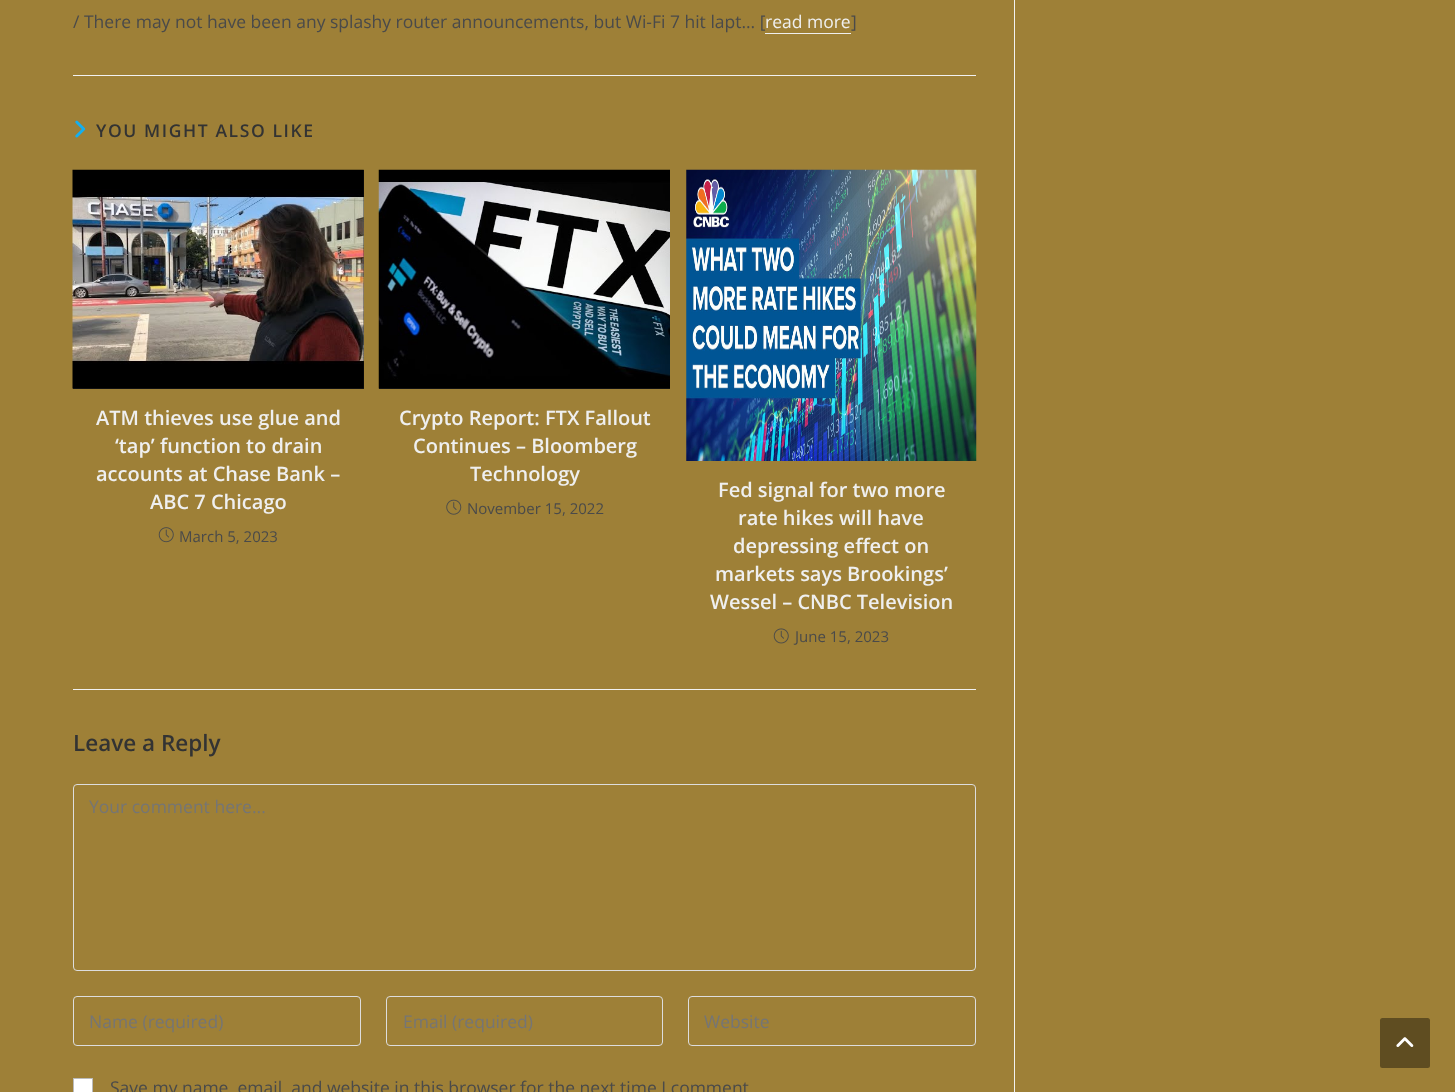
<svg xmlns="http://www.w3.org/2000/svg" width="1455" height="1092">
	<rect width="100%" height="100%" fill="#9E8037" />
	<rect x="1014" y="0" width="1" height="1092" fill="#F1F1F1" />
	<text x="73" y="28" font-family="Open Sans" font-size="17.5" fill="#4A4A4A">/ There may not have been any splashy router announcements, but Wi-Fi 7 hit lapt… [</text>
	<text x="765" y="28" font-family="Open Sans" font-size="17.5" fill="#EFEFEF">read more</text>
	<rect x="765" y="33" width="86" height="1" fill="#EFEFEF" />
	<text x="851" y="28" font-family="Open Sans" font-size="17.5" fill="#4A4A4A">]</text>
	<rect x="73" y="75" width="903" height="1" fill="#F1F1F1" />
	<image x="75" y="120" width="11" height="18" href="assets/img1.png" />
	<text x="96" y="137" font-family="Open Sans" font-size="17.5" font-weight="600" letter-spacing="1.6" fill="#333333">YOU MIGHT ALSO LIKE</text>
	<rect x="73" y="170" width="291" height="219" fill="#222222" />
	<image x="72" y="169" width="292" height="220" href="assets/img2.png" />
	<g font-family="Open Sans" font-size="20" font-weight="600" fill="#EFEFEF">
		<text x="96" y="425">ATM thieves use glue and</text>
		<text x="115" y="453">‘tap’ function to drain</text>
		<text x="96" y="481">accounts at Chase Bank –</text>
		<text x="150" y="509">ABC 7 Chicago</text>
	</g>
	<image x="158" y="527" width="16" height="16" href="assets/img3.png" />
	<text x="179" y="542" font-family="Open Sans" font-size="15" fill="#4A4A4A">March 5, 2023</text>
	<rect x="379" y="388" width="291" height="1" fill="#222222" />
	<image x="378" y="169" width="292" height="220" href="assets/img4.png" />
	<g font-family="Open Sans" font-size="20" font-weight="600" fill="#EFEFEF">
		<text x="399" y="425">Crypto Report: FTX Fallout</text>
		<text x="413" y="453">Continues – Bloomberg</text>
		<text x="470" y="481">Technology</text>
	</g>
	<image x="446" y="499" width="16" height="16" href="assets/img5.png" />
	<text x="467" y="514" font-family="Open Sans" font-size="15" fill="#4A4A4A">November 15, 2022</text>
	<image x="686" y="169" width="291" height="292" href="assets/img6.png" />
	<g font-family="Open Sans" font-size="20" font-weight="600" fill="#EFEFEF">
		<text x="718" y="497">Fed signal for two more</text>
		<text x="738" y="525">rate hikes will have</text>
		<text x="733" y="553">depressing effect on</text>
		<text x="715" y="581">markets says Brookings’</text>
		<text x="710" y="609">Wessel – CNBC Television</text>
	</g>
	<image x="773" y="628" width="16" height="16" href="assets/img7.png" />
	<text x="795" y="642" font-family="Open Sans" font-size="15" fill="#4A4A4A">June 15, 2023</text>
	<rect x="73" y="689" width="903" height="1" fill="#F1F1F1" />
	<text x="73" y="751" font-family="Open Sans" font-size="22.5" font-weight="600" fill="#333333">Leave a Reply</text>
	<rect x="73.5" y="784.5" width="902" height="186" rx="3.5" fill="none" stroke="#DDDDDD" />
	<text x="89" y="813" font-family="Open Sans" font-size="17.5" fill="#757575">Your comment here...</text>
	<rect x="73.5" y="996.5" width="287" height="49" rx="3.5" fill="none" stroke="#DDDDDD" />
	<text x="89" y="1028" font-family="Open Sans" font-size="17.5" fill="#757575">Name (required)</text>
	<rect x="386.5" y="996.5" width="276" height="49" rx="3.5" fill="none" stroke="#DDDDDD" />
	<text x="403" y="1028" font-family="Open Sans" font-size="17.5" fill="#757575">Email (required)</text>
	<rect x="688.5" y="996.5" width="287" height="49" rx="3.5" fill="none" stroke="#DDDDDD" />
	<text x="704" y="1028" font-family="Open Sans" font-size="17.5" fill="#757575">Website</text>
	<rect x="73.5" y="1078.5" width="19" height="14" fill="#FFFFFF" stroke="#BBBBBB" />
	<text x="110" y="1094" font-family="Open Sans" font-size="17.5" fill="#4A4A4A">Save my name, email, and website in this browser for the next time I comment</text>
	<rect x="1380" y="1018" width="50" height="50" rx="2.5" fill="#5F4D21" />
	<image x="1396" y="1037" width="18" height="10" href="assets/img8.png" />
</svg>
